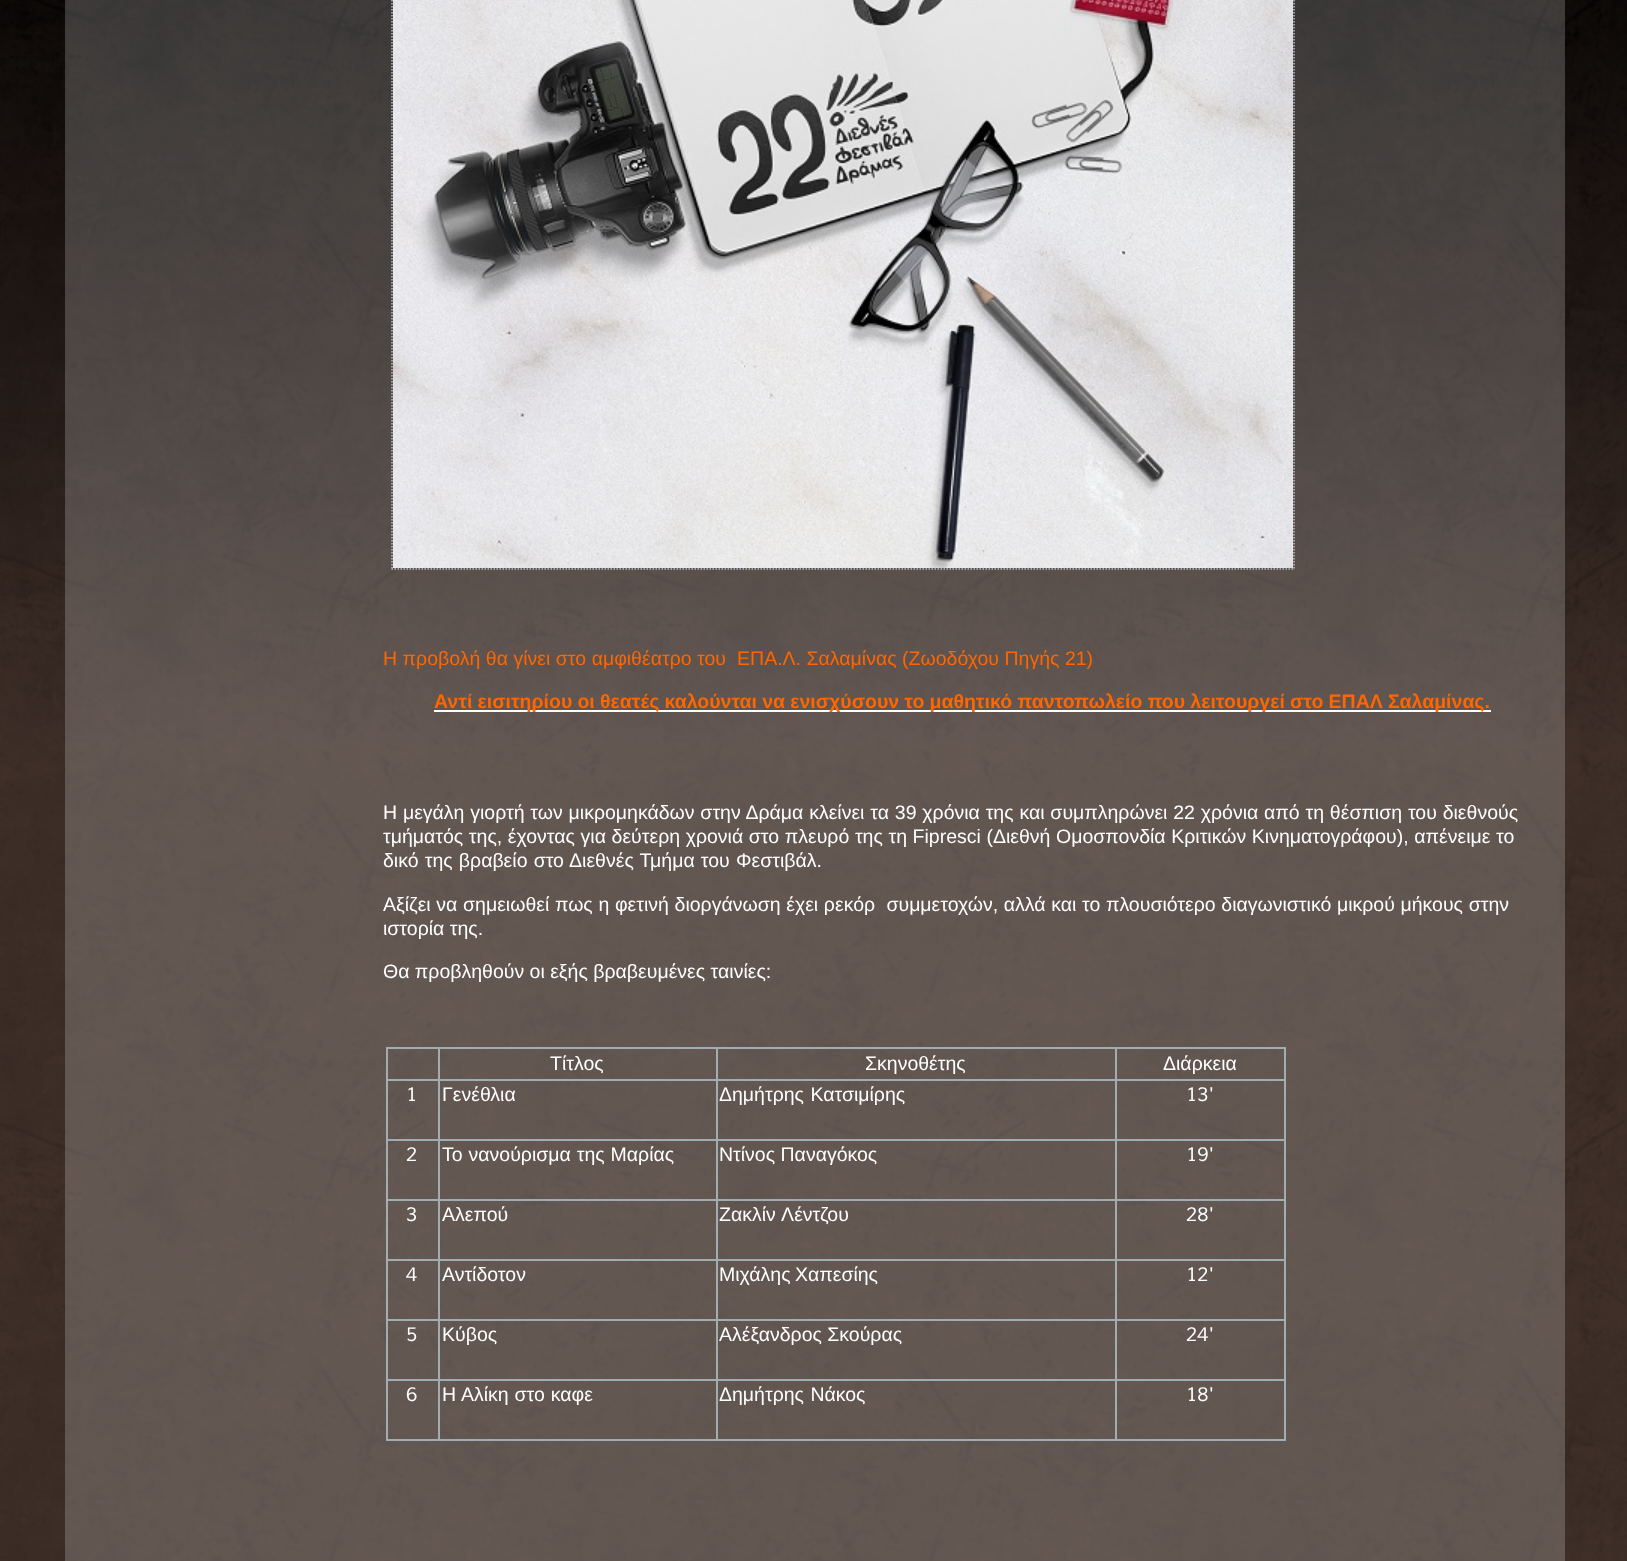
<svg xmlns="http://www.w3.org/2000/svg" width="1627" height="1561">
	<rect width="100%" height="100%" fill="#FFFFFF" />
	<image x="0" y="0" width="1627" height="1561" href="assets/img1.png" />
	<rect x="65" y="0" width="1500" height="1561" fill="#FFFFFF" fill-opacity="0.2" />
	<path d="M391.5 569H1294.5" fill="none" stroke="#B9C0C6" stroke-width="1.5" stroke-dasharray="1.5 1.5" />
	<path d="M392-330V570" fill="none" stroke="#B9C0C6" stroke-width="1.5" stroke-dasharray="1.5 1.5" />
	<image x="393" y="0" width="900" height="568" href="assets/img2.png" />
	<path d="M1294-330V570" fill="none" stroke="#B9C0C6" stroke-width="1.5" stroke-dasharray="1.5 1.5" />
	<text x="383" y="665" word-spacing="0.1" font-family="Liberation Sans" font-size="19.5" fill="#FF6600" xml:space="preserve">Η προβολή θα γίνει στο αμφιθέατρο του  ΕΠΑ.Λ. Σαλαμίνας (Ζωοδόχου Πηγής 21)</text>
	<rect x="434" y="710" width="1057" height="2" fill="#FFFFFF" />
	<text x="434" y="708" word-spacing="-0.25" font-family="Liberation Sans" font-size="19.5" font-weight="700" fill="#FF6600">Αντί εισιτηρίου οι θεατές καλούνται να ενισχύσουν το μαθητικό παντοπωλείο που λειτουργεί στο ΕΠΑΛ Σαλαμίνας.</text>
	<g font-family="Liberation Sans" font-size="19.5" fill="#FFFFFF">
		<text x="383" y="819" word-spacing="0.4">H μεγάλη γιορτή των μικρομηκάδων στην Δράμα κλείνει τα 39 χρόνια της και συμπληρώνει 22 χρόνια από τη θέσπιση του διεθνούς</text>
		<text x="383" y="843" word-spacing="0.2">τμήματός της, έχοντας για δεύτερη χρονιά στο πλευρό της τη Fipresci (Διεθνή Ομοσπονδία Κριτικών Κινηματογράφου), απένειμε το</text>
		<text x="383" y="867" word-spacing="0.75">δικό της βραβείο στο Διεθνές Τμήμα του Φεστιβάλ.</text>
		<text x="383" y="911" word-spacing="0.25" xml:space="preserve">Αξίζει να σημειωθεί πως η φετινή διοργάνωση έχει ρεκόρ  συμμετοχών, αλλά και το πλουσιότερο διαγωνιστικό μικρού μήκους στην</text>
		<text x="383" y="935">ιστορία της.</text>
		<text x="383" y="978">Θα προβληθούν οι εξής βραβευμένες ταινίες:</text>
	</g>
	<rect x="1115" y="1047" width="171" height="2" fill="#A2ACB3" />
	<rect x="1115" y="1079" width="171" height="2" fill="#A2ACB3" />
	<rect x="1115" y="1139" width="171" height="2" fill="#A2ACB3" />
	<rect x="1115" y="1199" width="171" height="2" fill="#A2ACB3" />
	<rect x="1115" y="1259" width="171" height="2" fill="#A2ACB3" />
	<rect x="1115" y="1319" width="171" height="2" fill="#A2ACB3" />
	<rect x="1115" y="1379" width="171" height="2" fill="#A2ACB3" />
	<rect x="1284" y="1379" width="2" height="61" fill="#A2ACB3" />
	<rect x="1115" y="1439" width="171" height="2" fill="#A2ACB3" />
	<rect x="1115" y="1379" width="2" height="61" fill="#A2ACB3" />
	<rect x="716" y="1379" width="400" height="2" fill="#A2ACB3" />
	<rect x="1115" y="1319" width="2" height="61" fill="#A2ACB3" />
	<rect x="716" y="1319" width="400" height="2" fill="#A2ACB3" />
	<rect x="1115" y="1259" width="2" height="61" fill="#A2ACB3" />
	<rect x="716" y="1259" width="400" height="2" fill="#A2ACB3" />
	<rect x="1115" y="1199" width="2" height="61" fill="#A2ACB3" />
	<rect x="716" y="1199" width="400" height="2" fill="#A2ACB3" />
	<rect x="1115" y="1139" width="2" height="61" fill="#A2ACB3" />
	<rect x="716" y="1139" width="400" height="2" fill="#A2ACB3" />
	<rect x="1115" y="1079" width="2" height="61" fill="#A2ACB3" />
	<rect x="716" y="1079" width="400" height="2" fill="#A2ACB3" />
	<rect x="1115" y="1047" width="2" height="33" fill="#A2ACB3" />
	<rect x="716" y="1047" width="400" height="2" fill="#A2ACB3" />
	<rect x="716" y="1439" width="400" height="2" fill="#A2ACB3" />
	<rect x="716" y="1379" width="2" height="61" fill="#A2ACB3" />
	<rect x="438" y="1379" width="279" height="2" fill="#A2ACB3" />
	<rect x="716" y="1319" width="2" height="61" fill="#A2ACB3" />
	<rect x="438" y="1319" width="279" height="2" fill="#A2ACB3" />
	<rect x="716" y="1259" width="2" height="61" fill="#A2ACB3" />
	<rect x="438" y="1259" width="279" height="2" fill="#A2ACB3" />
	<rect x="716" y="1199" width="2" height="61" fill="#A2ACB3" />
	<rect x="438" y="1199" width="279" height="2" fill="#A2ACB3" />
	<rect x="716" y="1139" width="2" height="61" fill="#A2ACB3" />
	<rect x="438" y="1139" width="279" height="2" fill="#A2ACB3" />
	<rect x="716" y="1079" width="2" height="61" fill="#A2ACB3" />
	<rect x="438" y="1079" width="279" height="2" fill="#A2ACB3" />
	<rect x="716" y="1047" width="2" height="33" fill="#A2ACB3" />
	<rect x="438" y="1047" width="279" height="2" fill="#A2ACB3" />
	<rect x="438" y="1439" width="279" height="2" fill="#A2ACB3" />
	<rect x="438" y="1379" width="2" height="61" fill="#A2ACB3" />
	<rect x="386" y="1379" width="54" height="2" fill="#A2ACB3" />
	<rect x="438" y="1319" width="2" height="61" fill="#A2ACB3" />
	<rect x="386" y="1319" width="54" height="2" fill="#A2ACB3" />
	<rect x="438" y="1259" width="2" height="61" fill="#A2ACB3" />
	<rect x="386" y="1259" width="54" height="2" fill="#A2ACB3" />
	<rect x="438" y="1199" width="2" height="61" fill="#A2ACB3" />
	<rect x="386" y="1199" width="54" height="2" fill="#A2ACB3" />
	<rect x="438" y="1139" width="2" height="61" fill="#A2ACB3" />
	<rect x="386" y="1139" width="54" height="2" fill="#A2ACB3" />
	<rect x="438" y="1079" width="2" height="61" fill="#A2ACB3" />
	<rect x="386" y="1079" width="54" height="2" fill="#A2ACB3" />
	<rect x="438" y="1047" width="2" height="33" fill="#A2ACB3" />
	<rect x="386" y="1047" width="54" height="2" fill="#A2ACB3" />
	<rect x="386" y="1439" width="54" height="2" fill="#A2ACB3" />
	<rect x="386" y="1379" width="2" height="61" fill="#A2ACB3" />
	<rect x="386" y="1319" width="2" height="61" fill="#A2ACB3" />
	<rect x="386" y="1259" width="2" height="61" fill="#A2ACB3" />
	<rect x="386" y="1199" width="2" height="61" fill="#A2ACB3" />
	<rect x="386" y="1139" width="2" height="61" fill="#A2ACB3" />
	<rect x="386" y="1079" width="2" height="61" fill="#A2ACB3" />
	<rect x="386" y="1047" width="2" height="33" fill="#A2ACB3" />
	<g font-family="Liberation Sans" font-size="19.5" fill="#FFFFFF">
		<text x="550" y="1070">Τίτλος</text>
		<text x="865" y="1070">Σκηνοθέτης</text>
	</g>
	<rect x="1284" y="1319" width="2" height="61" fill="#A2ACB3" />
	<rect x="1284" y="1259" width="2" height="61" fill="#A2ACB3" />
	<rect x="1284" y="1199" width="2" height="61" fill="#A2ACB3" />
	<rect x="1284" y="1139" width="2" height="61" fill="#A2ACB3" />
	<rect x="1284" y="1079" width="2" height="61" fill="#A2ACB3" />
	<rect x="1284" y="1047" width="2" height="33" fill="#A2ACB3" />
	<text x="1163" y="1070" font-family="Liberation Sans" font-size="19.5" fill="#FFFFFF">Διάρκεια</text>
	<text x="406" y="1101" font-family="Muli" font-size="19.5" font-style="italic" fill="#FFFFFF">1</text>
	<g font-family="Liberation Sans" font-size="19.5" fill="#FFFFFF">
		<text x="442" y="1101">Γενέθλια</text>
		<text x="719" y="1101" word-spacing="1">Δημήτρης Κατσιμίρης</text>
	</g>
	<g font-family="Muli" font-size="19.5" font-style="italic" fill="#FFFFFF">
		<text x="1186" y="1101">13'</text>
		<text x="406" y="1161">2</text>
	</g>
	<g font-family="Liberation Sans" font-size="19.5" fill="#FFFFFF">
		<text x="442" y="1161" word-spacing="0.5">Το νανούρισμα της Μαρίας</text>
		<text x="719" y="1161">Ντίνος Παναγόκος</text>
	</g>
	<g font-family="Muli" font-size="19.5" font-style="italic" fill="#FFFFFF">
		<text x="1186" y="1161">19'</text>
		<text x="406" y="1221">3</text>
	</g>
	<g font-family="Liberation Sans" font-size="19.5" fill="#FFFFFF">
		<text x="442" y="1221">Αλεπού</text>
		<text x="719" y="1221" word-spacing="1">Ζακλίν Λέντζου</text>
	</g>
	<g font-family="Muli" font-size="19.5" font-style="italic" fill="#FFFFFF">
		<text x="1186" y="1221">28'</text>
		<text x="406" y="1281">4</text>
	</g>
	<g font-family="Liberation Sans" font-size="19.5" fill="#FFFFFF">
		<text x="442" y="1281">Αντίδοτον</text>
		<text x="719" y="1281" word-spacing="-1">Μιχάλης Χαπεσίης</text>
	</g>
	<g font-family="Muli" font-size="19.5" font-style="italic" fill="#FFFFFF">
		<text x="1186" y="1281">12'</text>
		<text x="406" y="1341">5</text>
	</g>
	<g font-family="Liberation Sans" font-size="19.5" fill="#FFFFFF">
		<text x="442" y="1341">Κύβος</text>
		<text x="719" y="1341">Αλέξανδρος Σκούρας</text>
	</g>
	<g font-family="Muli" font-size="19.5" font-style="italic" fill="#FFFFFF">
		<text x="1186" y="1341">24'</text>
		<text x="406" y="1401">6</text>
	</g>
	<g font-family="Liberation Sans" font-size="19.5" fill="#FFFFFF">
		<text x="442" y="1401" word-spacing="0.5">Η Αλίκη στο καφε</text>
		<text x="719" y="1401" word-spacing="1">Δημήτρης Νάκος</text>
	</g>
	<text x="1186" y="1401" font-family="Muli" font-size="19.5" font-style="italic" fill="#FFFFFF">18'</text>
</svg>
